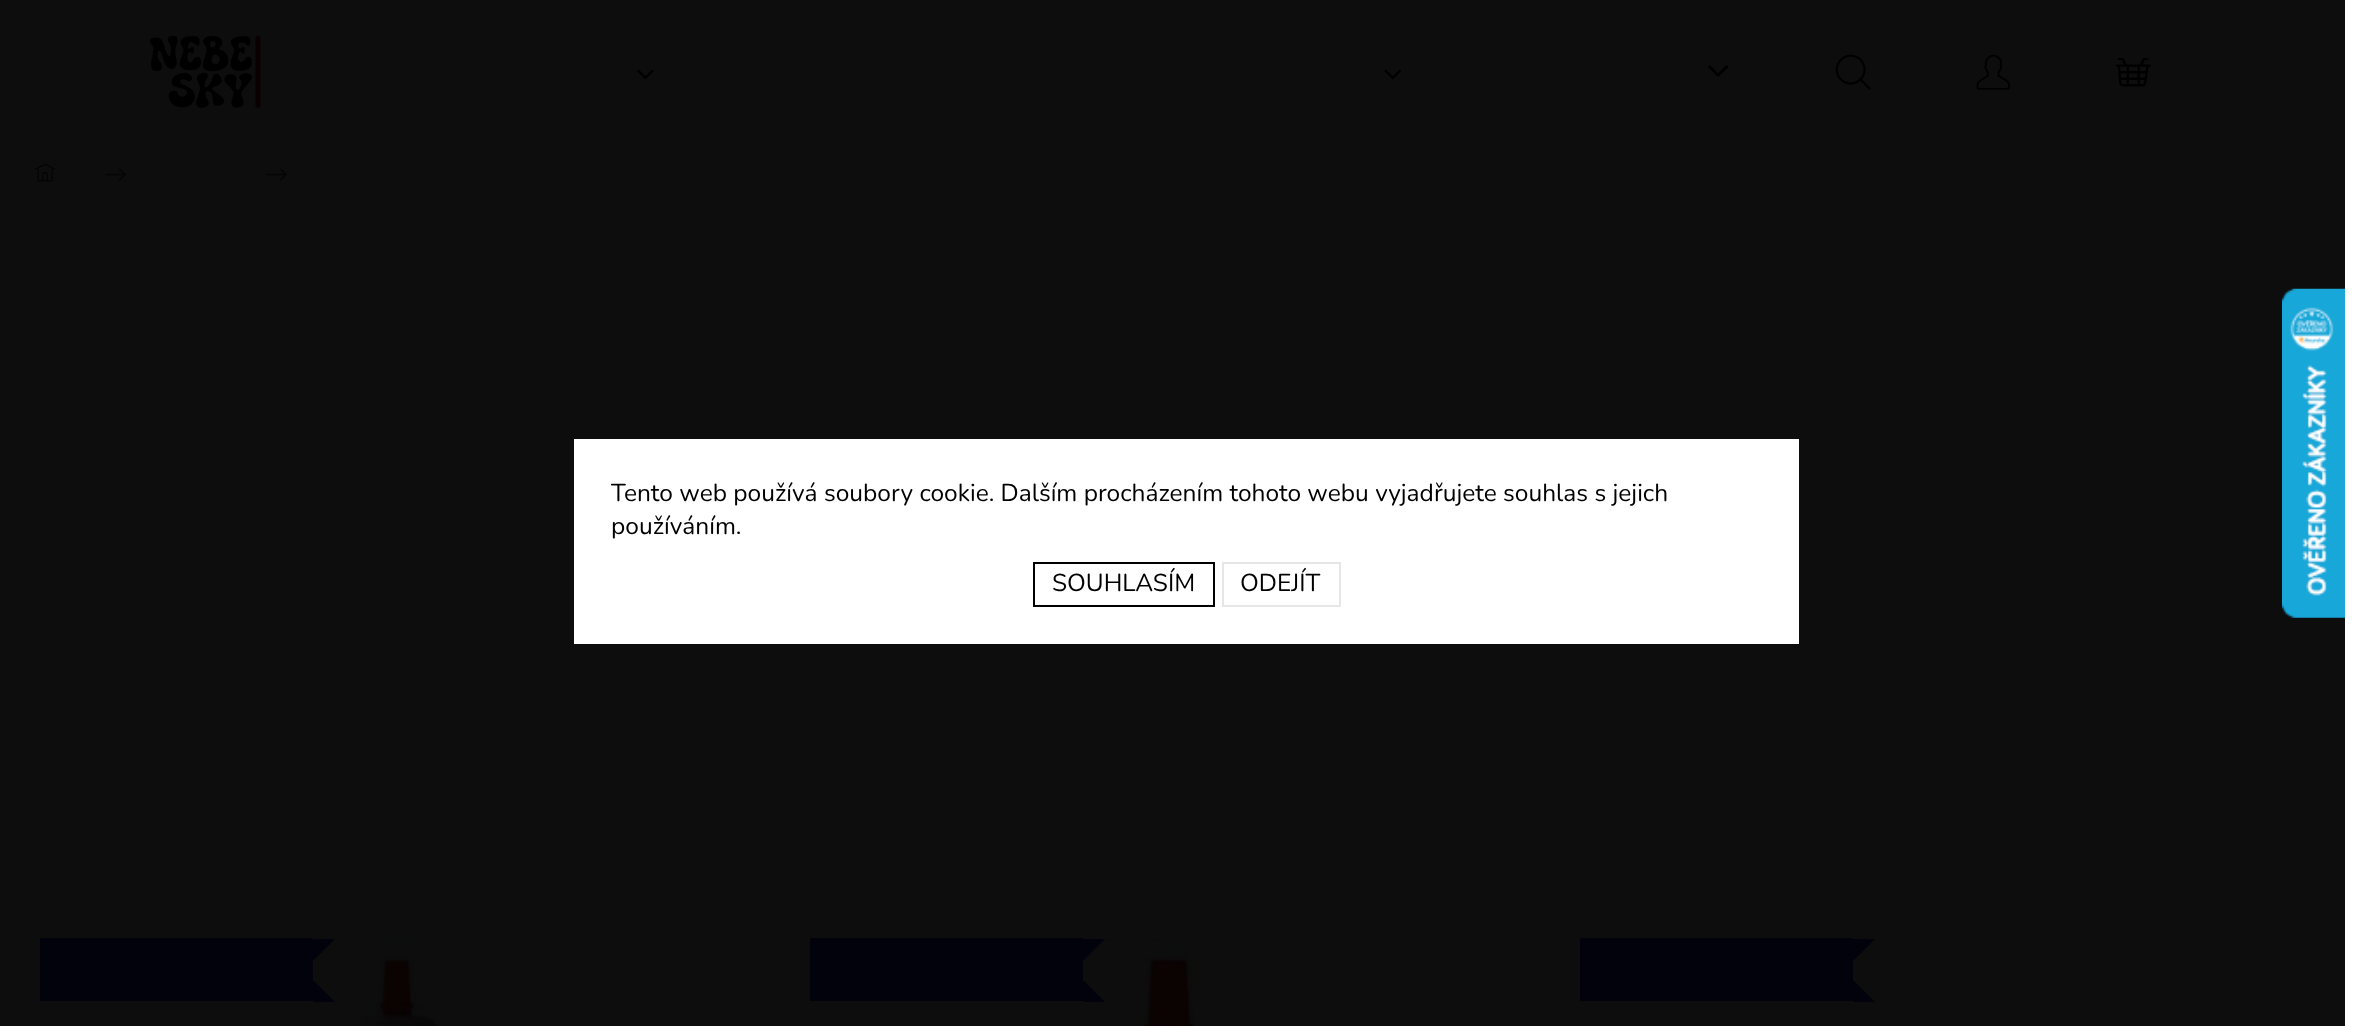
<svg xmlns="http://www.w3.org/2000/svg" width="2370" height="1026">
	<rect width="100%" height="100%" fill="#FFFFFF" />
	<rect x="0" y="0" width="2345" height="1026" fill="#0D0D0D" />
	<image x="149" y="35" width="112" height="73" href="assets/img1.png" />
	<image x="637" y="69" width="17" height="11" href="assets/img2.png" />
	<image x="1384" y="69" width="17" height="11" href="assets/img3.png" />
	<path d="M1708 67L1710 65L1718 73.5L1726.5 65L1728.5 67L1718 77Z" fill="#000000" />
	<image x="1835" y="54" width="36" height="36" href="assets/img4.png" />
	<image x="1976" y="54" width="34" height="36" href="assets/img5.png" />
	<image x="2115" y="58" width="36" height="29" href="assets/img6.png" />
	<image x="35" y="163" width="21" height="19" href="assets/img7.png" />
	<image x="105" y="168" width="21" height="13" href="assets/img8.png" />
	<image x="266" y="168" width="21" height="13" href="assets/img8.png" />
	<image x="42" y="939" width="721" height="87" href="assets/img9.png" />
	<rect x="40" y="938" width="273" height="63" fill="#01020C" />
	<path d="M293 981H314L335 1002H314ZM314 939H335L314 960H293Z" fill="#01020C" />
	<image x="812" y="939" width="721" height="87" href="assets/img10.png" />
	<rect x="810" y="938" width="273" height="63" fill="#01020C" />
	<path d="M1063 981H1084L1105 1002H1084ZM1084 939H1105L1084 960H1063Z" fill="#01020C" />
	<rect x="1580" y="938" width="273" height="63" fill="#01020C" />
	<path d="M1833 981H1854L1875 1002H1854ZM1854 939H1875L1854 960H1833Z" fill="#01020C" />
	<image x="2282" y="288" width="63" height="330" href="assets/img11.png" />
	<rect x="574" y="439" width="1225" height="205" fill="#FFFFFF" />
	<g font-family="Nunito" font-size="24.5" fill="#000000">
		<text x="611" y="501">Tento web používá soubory cookie. Dalším procházením tohoto webu vyjadřujete souhlas s jejich</text>
		<text x="611" y="534">používáním.</text>
	</g>
	<rect x="1034" y="563" width="180" height="43" fill="none" stroke="#000000" stroke-width="2" />
	<text x="1052" y="591" font-family="Nunito" font-size="24.5" fill="#000000">SOUHLASÍM</text>
	<rect x="1223" y="563" width="117" height="43" fill="none" stroke="#E6E6E6" stroke-width="2" />
	<text x="1240" y="591" font-family="Nunito" font-size="24.5" fill="#000000">ODEJÍT</text>
</svg>
